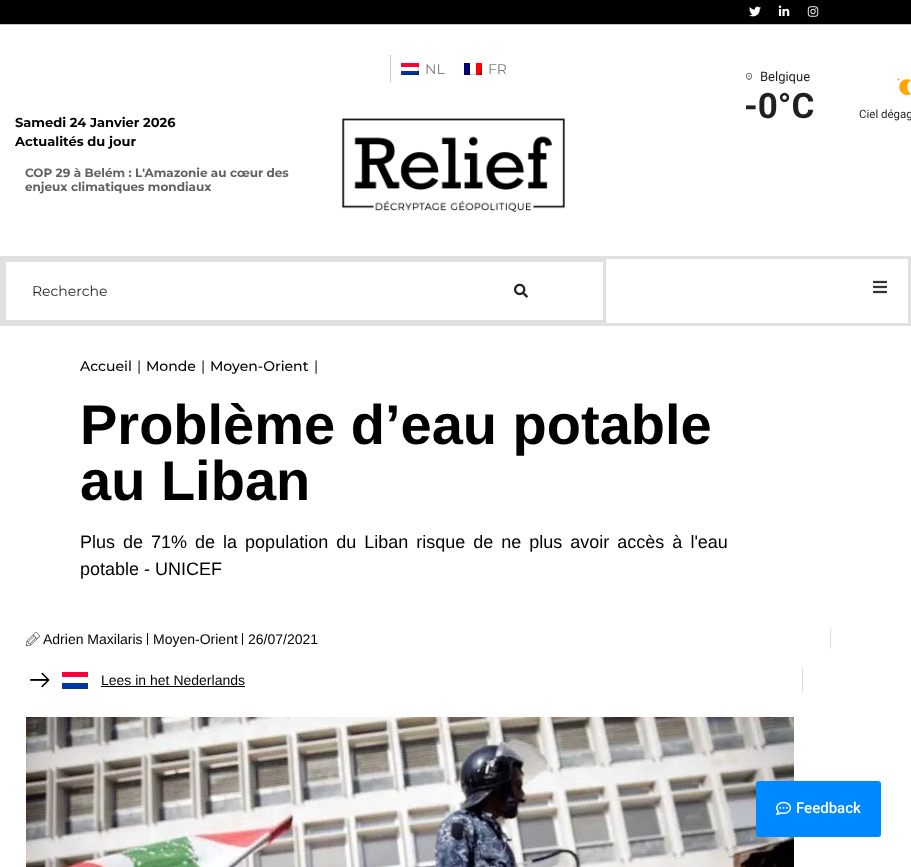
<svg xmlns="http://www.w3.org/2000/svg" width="911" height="867">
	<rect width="100%" height="100%" fill="#FFFFFF" />
	<rect x="0" y="0" width="911" height="24" fill="#000000" />
	<rect x="0" y="24" width="911" height="1" fill="#C7C7C8" />
	<image x="749" y="6" width="12" height="11" href="assets/img1.png" />
	<image x="778" y="5" width="12" height="11" href="assets/img2.png" />
	<image x="807" y="6" width="12" height="11" href="assets/img3.png" />
	<rect x="390" y="55" width="1" height="27" fill="#C7C7C8" />
	<image x="401" y="63" width="18" height="12" href="assets/img4.png" />
	<text x="425" y="74" font-family="Montserrat" font-size="14" fill="#7A7A7A">NL</text>
	<image x="464" y="63" width="18" height="12" href="assets/img5.png" />
	<text x="488" y="74" font-family="Montserrat" font-size="14" fill="#7A7A7A">FR</text>
	<image x="341" y="118" width="224" height="94" href="assets/img6.png" />
	<image x="746" y="73" width="6" height="7" href="assets/img7.png" />
	<text x="760" y="81" font-family="Roboto" font-size="13" fill="#1F2024">Belgique</text>
	<text x="744" y="118" font-family="Roboto" font-size="35" font-weight="700" fill="#1F2024">-0°C</text>
	<image x="897" y="78" width="14" height="20" href="assets/img8.png" />
	<text x="859" y="118" font-family="Roboto" font-size="11.5" fill="#1F2024">Ciel dégag</text>
	<g font-family="Montserrat" font-size="13" font-weight="700" fill="#000000">
		<text x="15" y="127">Samedi 24 Janvier 2026</text>
		<text x="15" y="146">Actualités du jour</text>
	</g>
	<g font-family="Montserrat" font-size="12" font-weight="700" fill="#616161">
		<text x="25" y="177">COP 29 à Belém : L'Amazonie au cœur des</text>
		<text x="25" y="191">enjeux climatiques mondiaux</text>
	</g>
	<rect x="1.5" y="257.5" width="908" height="67" fill="none" stroke="#E0E0E0" stroke-width="3" />
	<rect x="4.5" y="260.5" width="600" height="61" fill="none" stroke="#E0E0E0" stroke-width="3" />
	<text x="32" y="296" font-family="Montserrat" font-size="14" fill="#1F2024">Recherche</text>
	<image x="514" y="283" width="14" height="15" href="assets/img9.png" />
	<image x="873" y="280" width="14" height="14" href="assets/img10.png" />
	<text x="80" y="371" font-family="Montserrat" font-size="14" font-weight="500" fill="#000000">Accueil</text>
	<text x="137" y="371" font-family="Montserrat" font-size="14" font-weight="500" fill="#333333">|</text>
	<text x="146" y="371" font-family="Montserrat" font-size="14" font-weight="500" fill="#000000">Monde</text>
	<text x="201" y="371" font-family="Montserrat" font-size="14" font-weight="500" fill="#333333">|</text>
	<text x="210" y="371" font-family="Montserrat" font-size="14" font-weight="500" fill="#000000">Moyen-Orient</text>
	<text x="314" y="371" font-family="Montserrat" font-size="14" font-weight="500" fill="#333333">|</text>
	<g font-family="Liberation Sans" font-size="56" font-weight="700" fill="#000000">
		<text x="80" y="444">Problème d’eau potable</text>
		<text x="80" y="500">au Liban</text>
	</g>
	<g font-family="Liberation Sans" font-size="18" fill="#000000">
		<text x="80" y="548" word-spacing="3">Plus de 71% de la population du Liban risque de ne plus avoir accès à l'eau</text>
		<text x="80" y="575">potable - UNICEF</text>
	</g>
	<rect x="830" y="629" width="1" height="20" fill="#DDDDDD" />
	<image x="26" y="632" width="14" height="14" href="assets/img11.png" />
	<text x="43" y="644" font-family="Liberation Sans" font-size="14" fill="#000000">Adrien Maxilaris</text>
	<rect x="147" y="633" width="1" height="12" fill="#000000" />
	<text x="153" y="644" font-family="Liberation Sans" font-size="14" fill="#000000">Moyen-Orient</text>
	<rect x="242" y="633" width="1" height="12" fill="#000000" />
	<text x="248" y="644" font-family="Liberation Sans" font-size="14" fill="#000000">26/07/2021</text>
	<image x="30" y="672" width="20" height="16" href="assets/img12.png" />
	<rect x="802" y="667" width="1" height="26" fill="#DDDDDD" />
	<rect x="62" y="672" width="26" height="5" fill="#FE003C" />
	<rect x="62" y="683" width="26" height="6" fill="#0037A8" />
	<text x="101" y="685" font-family="Liberation Sans" font-size="14" fill="#000000">Lees in het Nederlands</text>
	<rect x="101" y="686" width="144" height="1" fill="#000000" />
	<image x="26" y="717" width="768" height="150" href="assets/img13.png" />
	<rect x="756" y="781" width="125" height="56" rx="3" fill="#0088FF" />
	<image x="776" y="801" width="15" height="14" href="assets/img14.png" />
	<text x="796" y="813" font-family="Roboto" font-size="15" font-weight="500" fill="#FFFFFF">Feedback</text>
</svg>
